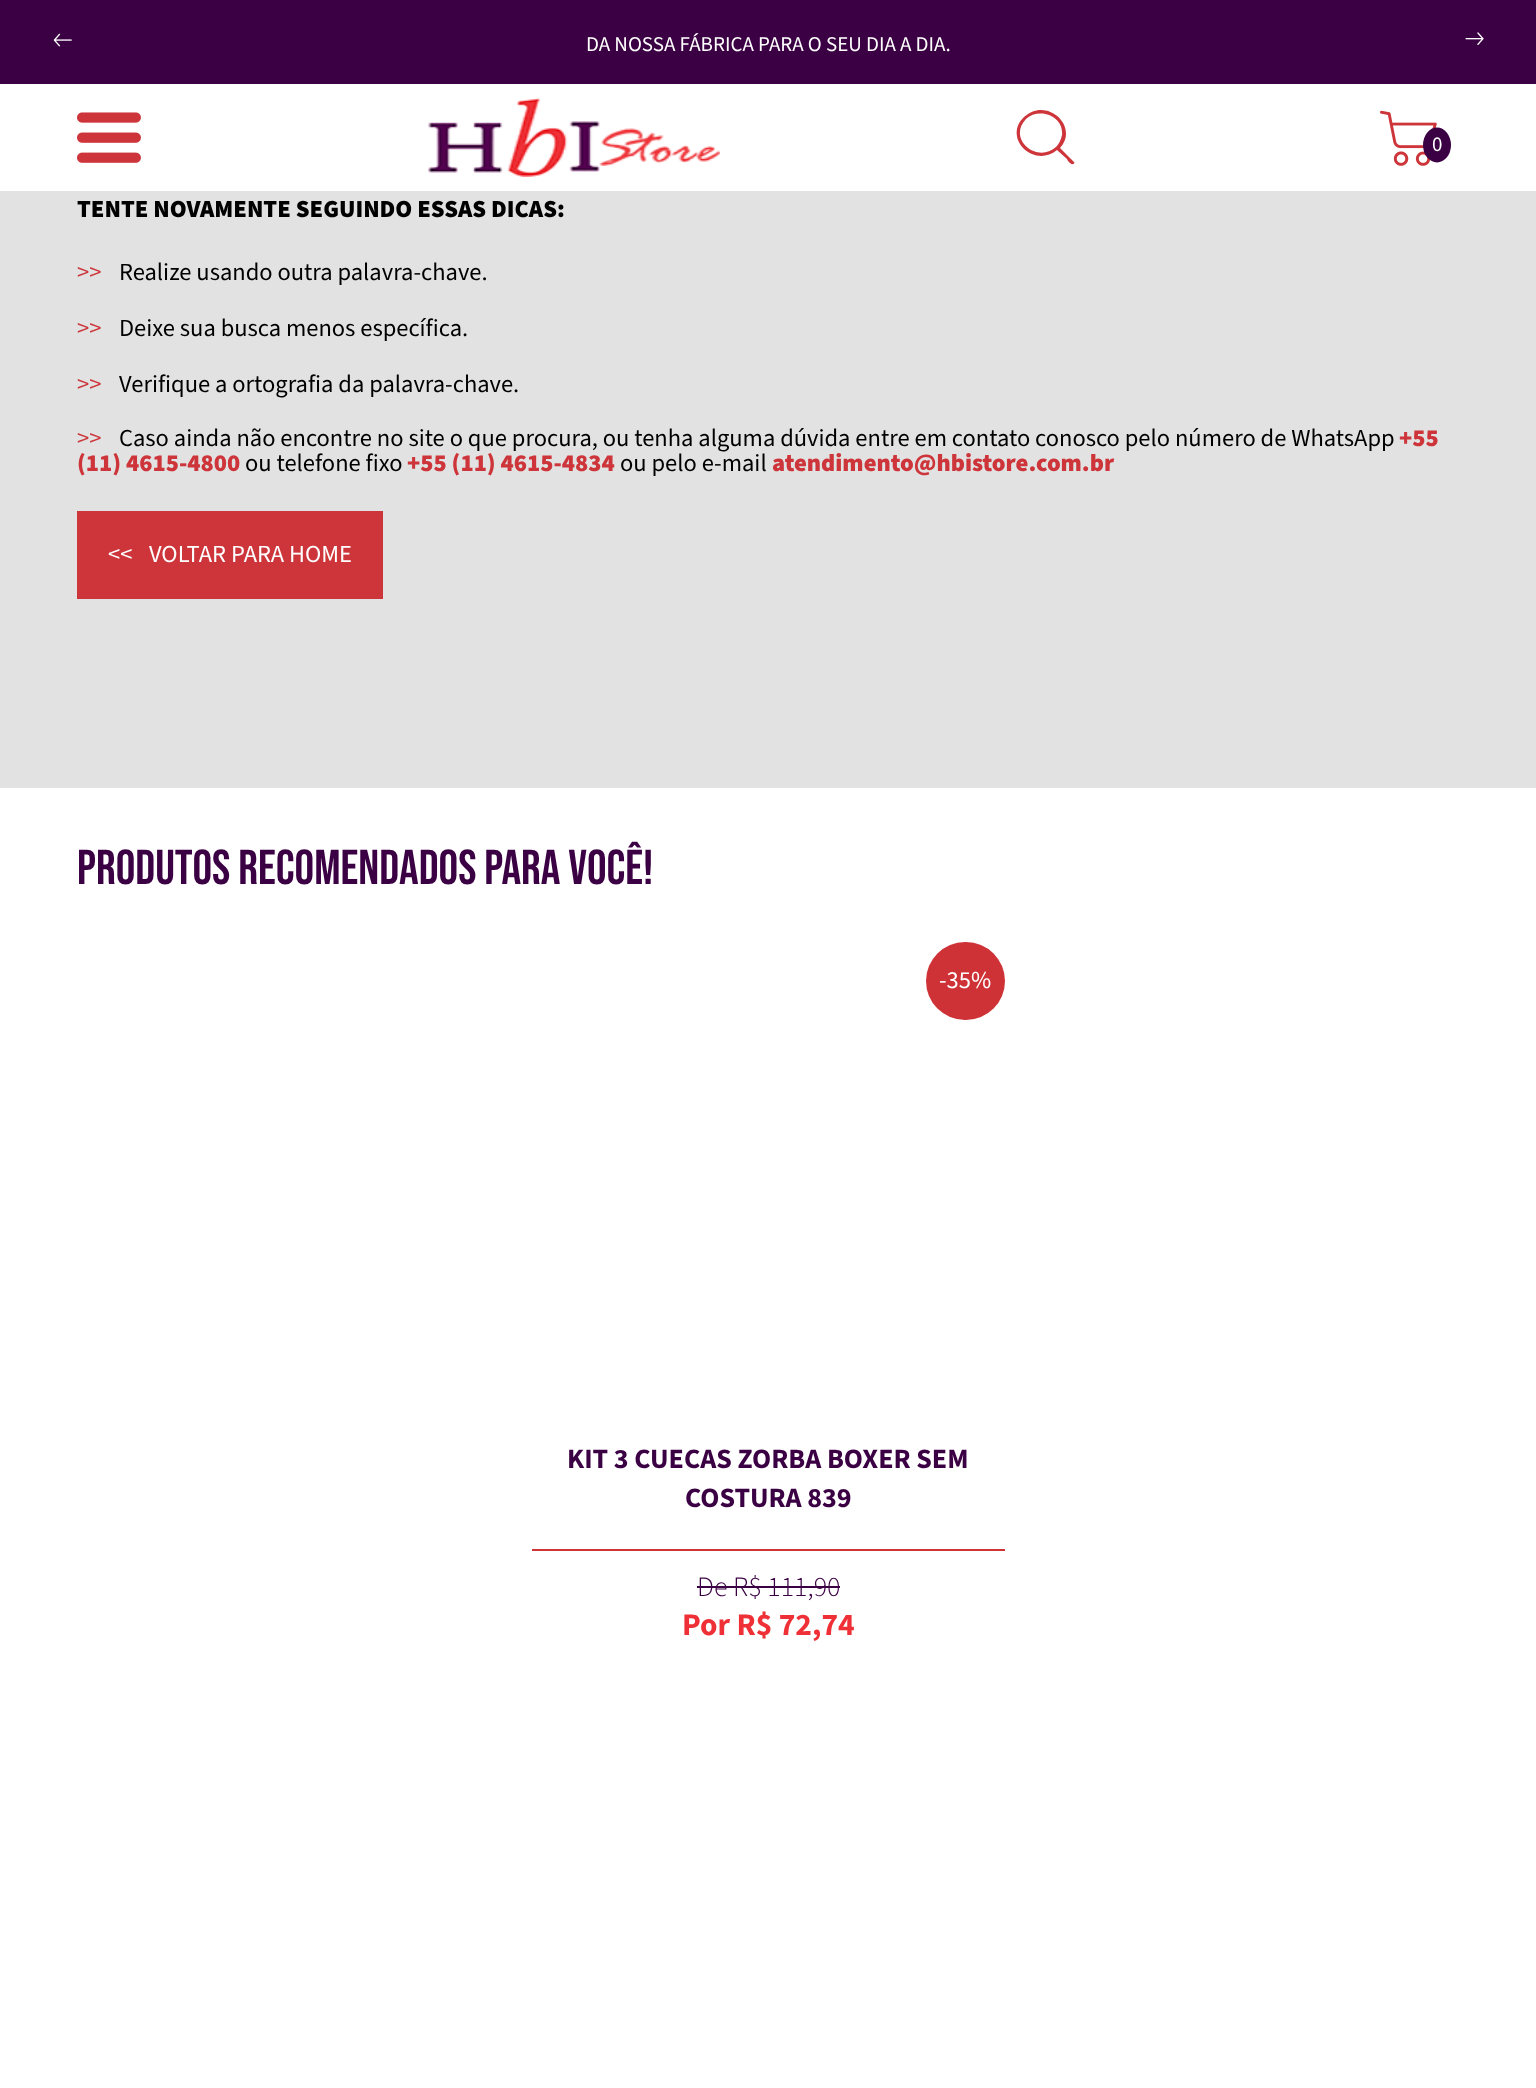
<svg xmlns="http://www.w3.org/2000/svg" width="1536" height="2088">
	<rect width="100%" height="100%" fill="#FFFFFF" />
	<rect x="0" y="0" width="1536" height="84" fill="#3B0043" />
	<image x="53" y="33" width="19" height="14" href="assets/img1.png" />
	<text x="586" y="51" font-family="'Source Sans 3'" font-size="21" fill="#FFFFFF">DA NOSSA FÁBRICA PARA O SEU DIA A DIA.</text>
	<image x="1465" y="32" width="19" height="13" href="assets/img2.png" />
	<image x="77" y="112" width="64" height="51" href="assets/img3.png" />
	<image x="428" y="98" width="292" height="79" href="assets/img4.png" />
	<path d="M1056 147C1037 164 1007 139 1026 119C1039 107 1064 116 1062 135C1061 140 1059 144 1056 147ZM1074 162L1060 148C1080 126 1046 96 1024 117C1002 138 1034 169 1057 150L1067 159C1067 160 1071 165 1073 164C1074 164 1075 162 1074 162Z" fill="#CD353A" />
	<image x="1380" y="110" width="57" height="56" href="assets/img5.png" />
	<ellipse cx="1437" cy="145" rx="14" ry="17.5" fill="#3B0043" />
	<text x="1432" y="151" font-family="'Source Sans 3'" font-size="21" fill="#FFFFFF">0</text>
	<rect x="0" y="191" width="1536" height="597" fill="#E2E2E2" />
	<text x="77" y="217" font-family="'Source Sans 3'" font-size="24.5" font-weight="900" fill="#000000">TENTE NOVAMENTE SEGUINDO ESSAS DICAS:</text>
	<text x="77" y="280" font-family="'Source Sans 3'" font-size="24.5" fill="#CD353A">&gt;&gt;</text>
	<text x="119" y="280" font-family="'Source Sans 3'" font-size="24.5" fill="#000000">Realize usando outra palavra-chave.</text>
	<text x="77" y="336" font-family="'Source Sans 3'" font-size="24.5" fill="#CD353A">&gt;&gt;</text>
	<text x="119" y="336" font-family="'Source Sans 3'" font-size="24.5" fill="#000000">Deixe sua busca menos específica.</text>
	<text x="77" y="392" font-family="'Source Sans 3'" font-size="24.5" fill="#CD353A">&gt;&gt;</text>
	<text x="119" y="392" font-family="'Source Sans 3'" font-size="24.5" fill="#000000">Verifique a ortografia da palavra-chave.</text>
	<text x="77" y="446" font-family="'Source Sans 3'" font-size="24.5" fill="#CD353A">&gt;&gt;</text>
	<text x="119" y="446" font-family="'Source Sans 3'" font-size="24.5" fill="#000000">Caso ainda não encontre no site o que procura, ou tenha alguma dúvida entre em contato conosco pelo número de WhatsApp</text>
	<g font-family="'Source Sans 3'" font-size="24.5" font-weight="900" fill="#CD353A">
		<text x="1399" y="446">+55</text>
		<text x="77" y="471">(11) 4615-4800</text>
	</g>
	<text x="245" y="471" font-family="'Source Sans 3'" font-size="24.5" fill="#000000">ou telefone fixo</text>
	<text x="407" y="471" font-family="'Source Sans 3'" font-size="24.5" font-weight="900" fill="#CD353A">+55 (11) 4615-4834</text>
	<text x="620" y="471" font-family="'Source Sans 3'" font-size="24.5" fill="#000000">ou pelo e-mail</text>
	<text x="772" y="471" font-family="'Source Sans 3'" font-size="24.5" font-weight="900" fill="#CD353A">atendimento@hbistore.com.br</text>
	<rect x="77" y="511" width="306" height="88" fill="#CD353A" />
	<g font-family="'Source Sans 3'" font-size="24.5" fill="#FFFFFF">
		<text x="108" y="562">&lt;&lt;</text>
		<text x="149" y="562">VOLTAR PARA HOME</text>
	</g>
	<text x="77" y="884" font-family="Bebas Neue" font-size="49" fill="#3B0043">PRODUTOS RECOMENDADOS PARA VOCÊ!</text>
	<rect x="926" y="942" width="79" height="78" rx="39" fill="#CE3237" />
	<text x="939" y="988" font-family="'Source Sans 3'" font-size="24.5" fill="#FFFFFF">-35%</text>
	<g font-family="'Source Sans 3'" font-size="28" font-weight="700" fill="#3B0043">
		<text x="567" y="1468">KIT 3 CUECAS ZORBA BOXER SEM</text>
		<text x="685" y="1507">COSTURA 839</text>
	</g>
	<rect x="532" y="1549" width="473" height="2" fill="#CF3439" />
	<text x="697" y="1596" font-family="'Source Sans 3'" font-size="28" font-weight="300" fill="#3B0043">De R$ 111,90</text>
	<rect x="697" y="1586" width="143" height="2" fill="#3B0043" />
	<text x="682" y="1635" font-family="'Source Sans 3'" font-size="31.5" font-weight="700" fill="#EF3036">Por R$ 72,74</text>
</svg>
